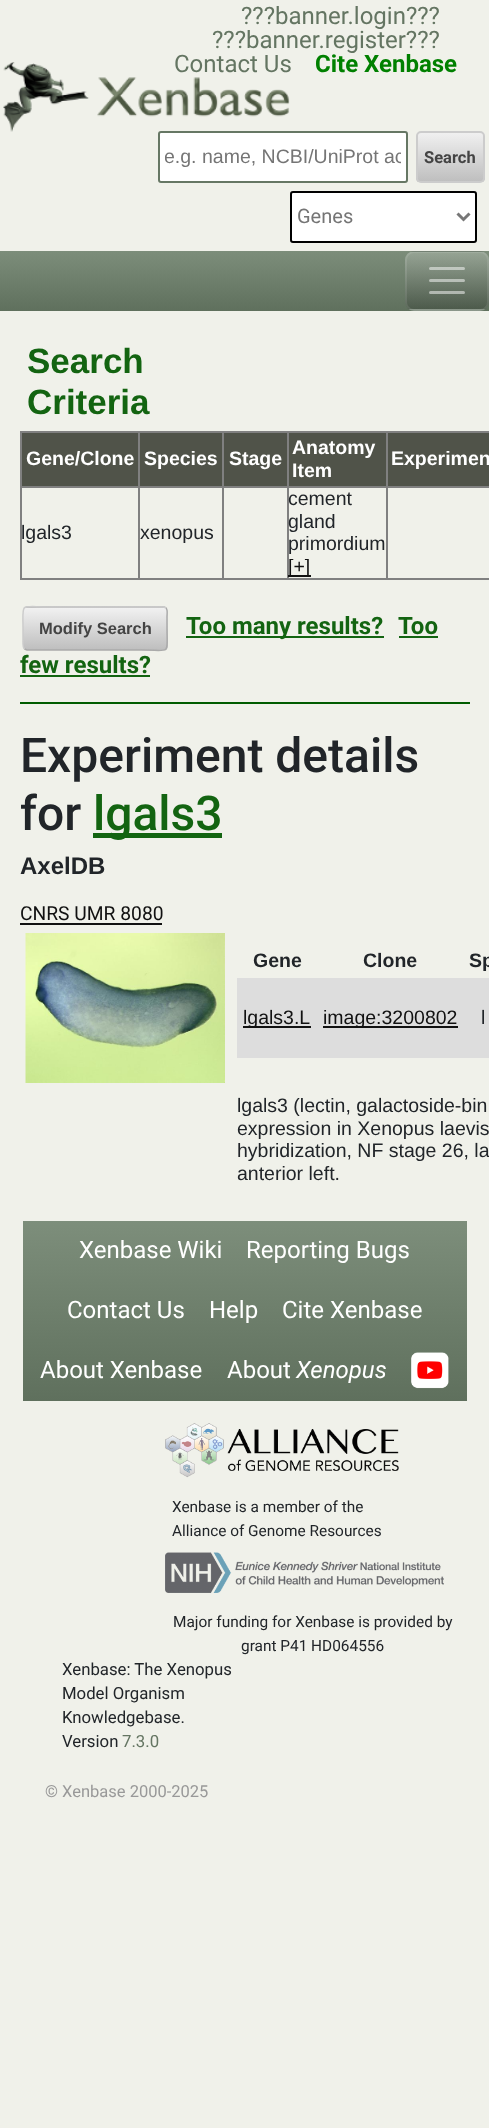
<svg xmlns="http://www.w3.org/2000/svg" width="489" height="2128">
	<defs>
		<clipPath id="clip1"><rect x="165" y="146" width="236" height="22" /></clipPath>
		<clipPath id="clip2"><rect x="416" y="131" width="69" height="52" rx="5" /></clipPath>
		<linearGradient id="g1" gradientUnits="userSpaceOnUse" x1="450" y1="132" x2="450" y2="182"><stop offset="0" stop-color="#F1F1F1" /><stop offset="1" stop-color="#BEBEBE" /></linearGradient>
		<linearGradient id="g2" gradientUnits="userSpaceOnUse" x1="245" y1="250" x2="245" y2="311"><stop offset="0" stop-color="#7D8E7B" /><stop offset="1" stop-color="#5F705D" /></linearGradient>
		<clipPath id="clip3"><rect x="405" y="251" width="84" height="60" rx="9" /></clipPath>
		<linearGradient id="g3" gradientUnits="userSpaceOnUse" x1="447" y1="195" x2="447" y2="252"><stop offset="0" stop-color="#96A495" /><stop offset="1" stop-color="#637162" /></linearGradient>
		<linearGradient id="g4" gradientUnits="userSpaceOnUse" x1="447" y1="252" x2="447" y2="309"><stop offset="0" stop-color="#FFFFFF" stop-opacity="0.2" /><stop offset="1" stop-color="#000000" stop-opacity="0.2" /></linearGradient>
		<linearGradient id="g5" gradientUnits="userSpaceOnUse" x1="447" y1="309" x2="447" y2="366"><stop offset="0" stop-color="#7F8D7E" /><stop offset="1" stop-color="#4C5A4B" /></linearGradient>
		<clipPath id="clip4"><rect x="23" y="606" width="145" height="45" rx="5" /></clipPath>
		<linearGradient id="g6" gradientUnits="userSpaceOnUse" x1="95" y1="566" x2="95" y2="608"><stop offset="0" stop-color="#F1F1F1" /><stop offset="1" stop-color="#BEBEBE" /></linearGradient>
		<linearGradient id="g7" gradientUnits="userSpaceOnUse" x1="95" y1="608" x2="95" y2="650"><stop offset="0" stop-color="#F1F1F1" /><stop offset="1" stop-color="#BEBEBE" /></linearGradient>
		<linearGradient id="g8" gradientUnits="userSpaceOnUse" x1="245" y1="1221" x2="245" y2="1401"><stop offset="0" stop-color="#7D8E7B" /><stop offset="1" stop-color="#5F705D" /></linearGradient>
	</defs>
	<rect width="100%" height="100%" fill="#F0F1EA" />
	<g font-family="Roboto" font-size="24" fill="#647562">
		<text x="241" y="24">???banner.login???</text>
		<text x="212" y="48">???banner.register???</text>
		<text x="174" y="72">Contact Us</text>
	</g>
	<text x="315" y="72" font-family="Roboto" font-size="24" font-weight="700" fill="#008000">Cite Xenbase</text>
	<rect x="159" y="132" width="248" height="50" rx="2" fill="#FFFFFF" stroke="#667764" stroke-width="2" />
	<image x="3" y="62" width="287" height="70" href="assets/img1.png" />
	<g clip-path="url(#clip1)">
		<text x="164" y="163" font-family="Liberation Sans" font-size="19.5" fill="#757575">e.g. name, NCBI/UniProt ac</text>
	</g>
	<g clip-path="url(#clip2)">
		<rect x="416" y="132" width="69" height="50" fill="url(#g1)" />
	</g>
	<rect x="417" y="132" width="67" height="50" rx="4" fill="none" stroke="#CCCCCC" stroke-width="2" />
	<text x="424" y="163" font-family="Roboto" font-size="16.5" font-weight="700" fill="#444444">Search</text>
	<rect x="291" y="192" width="185" height="50" rx="2" fill="#FFFFFF" stroke="#000000" stroke-width="2" />
	<path d="M457.5 213.5L463.5 219.5L469.5 213.5" fill="none" stroke="#777777" stroke-width="3" />
	<text x="297" y="223" font-family="Roboto" font-size="20" fill="#757575">Genes</text>
	<rect x="0" y="251" width="489" height="60" fill="url(#g2)" />
	<g clip-path="url(#clip3)">
		<rect x="405" y="251" width="84" height="1" fill="url(#g3)" />
		<rect x="405" y="252" width="84" height="57" fill="url(#g4)" />
		<rect x="405" y="309" width="84" height="2" fill="url(#g5)" />
	</g>
	<rect x="406" y="252" width="82" height="58" rx="8" fill="none" stroke="#FFFFFF" stroke-opacity="0.1" stroke-width="2" />
	<path d="M430.5 268.5H463.5M430.5 280.5H463.5M430.5 292.5H463.5" fill="none" stroke="#FFFFFF" stroke-opacity="0.5" stroke-width="3" stroke-linecap="round" />
	<g font-family="Liberation Sans" font-size="35" font-weight="700" fill="#136411">
		<text x="27" y="373">Search</text>
		<text x="27" y="414">Criteria</text>
	</g>
	<rect x="20" y="431" width="469" height="2" fill="#808080" />
	<rect x="20" y="578" width="469" height="2" fill="#808080" />
	<rect x="20" y="431" width="2" height="148" fill="#808080" />
	<rect x="22" y="433" width="116" height="53" fill="#505349" />
	<text x="26" y="465" font-family="Liberation Sans" font-size="19.5" font-weight="700" fill="#FFFFFF">Gene/Clone</text>
	<rect x="140" y="433" width="82" height="53" fill="#505349" />
	<rect x="386" y="486" width="103" height="2" fill="#808080" />
	<rect x="386" y="486" width="2" height="93" fill="#808080" />
	<rect x="287" y="486" width="100" height="2" fill="#808080" />
	<rect x="287" y="486" width="2" height="93" fill="#808080" />
	<rect x="222" y="486" width="66" height="2" fill="#808080" />
	<rect x="222" y="486" width="2" height="93" fill="#808080" />
	<rect x="138" y="486" width="86" height="2" fill="#808080" />
	<rect x="138" y="486" width="2" height="93" fill="#808080" />
	<rect x="20" y="486" width="120" height="2" fill="#808080" />
	<rect x="138" y="431" width="2" height="57" fill="#808080" />
	<text x="144" y="465" font-family="Liberation Sans" font-size="19.5" font-weight="700" fill="#FFFFFF">Species</text>
	<rect x="224" y="433" width="63" height="53" fill="#505349" />
	<rect x="222" y="431" width="2" height="57" fill="#808080" />
	<text x="229" y="465" font-family="Liberation Sans" font-size="19.5" font-weight="700" fill="#FFFFFF">Stage</text>
	<rect x="289" y="433" width="97" height="53" fill="#505349" />
	<rect x="287" y="431" width="2" height="57" fill="#808080" />
	<g font-family="Liberation Sans" font-size="19.5" font-weight="700" fill="#FFFFFF">
		<text x="292" y="454">Anatomy</text>
		<text x="292" y="477">Item</text>
	</g>
	<rect x="388" y="433" width="101" height="53" fill="#505349" />
	<rect x="386" y="431" width="2" height="57" fill="#808080" />
	<text x="391" y="465" font-family="Liberation Sans" font-size="19.5" font-weight="700" fill="#FFFFFF">Experimen</text>
	<g font-family="Liberation Sans" font-size="19.5" fill="#212529">
		<text x="21" y="539">lgals3</text>
		<text x="140" y="539">xenopus</text>
		<text x="288" y="505">cement</text>
		<text x="288" y="528">gland</text>
		<text x="288" y="550">primordium</text>
	</g>
	<rect x="288" y="575" width="23" height="2" fill="#111111" />
	<text x="288" y="573" font-family="Liberation Sans" font-size="19.5" fill="#111111">[+]</text>
	<g clip-path="url(#clip4)">
		<rect x="23" y="606" width="145" height="2" fill="url(#g6)" />
		<rect x="23" y="608" width="145" height="42" fill="url(#g7)" />
	</g>
	<path d="M166 608C168 610 167 614.5 167 616.5V628.5C167 656 171.5 650 141 650H27L24.5 649" fill="none" stroke="#AAAAAA" stroke-width="1.5" />
	<path d="M24.5 649C22.5 647 23 642.5 23 640.5V628.5C23 601 19 607 50 607H163.5L166 608" fill="none" stroke="#CCCCCC" stroke-width="1.5" />
	<text x="39" y="634" font-family="Liberation Sans" font-size="16.5" font-weight="700" fill="#444444">Modify Search</text>
	<rect x="186" y="636" width="198" height="2" fill="#136411" />
	<g font-family="Roboto" font-size="24" font-weight="700" fill="#136411">
		<text x="186" y="634">Too many results?</text>
		<text x="398" y="634">Too</text>
	</g>
	<rect x="399" y="636" width="39" height="2" fill="#136411" />
	<text x="20" y="673" font-family="Roboto" font-size="24" font-weight="700" fill="#136411">few results?</text>
	<rect x="20" y="675" width="130" height="2" fill="#136411" />
	<rect x="20" y="702" width="450" height="2" fill="#005C00" />
	<g font-family="Roboto" font-size="48" font-weight="500" fill="#212529">
		<text x="20" y="772">Experiment details</text>
		<text x="20" y="830">for</text>
	</g>
	<rect x="93" y="833" width="129" height="5" fill="#136411" />
	<text x="93" y="830" font-family="Roboto" font-size="48" font-weight="500" fill="#136411">lgals3</text>
	<text x="20" y="874" font-family="Liberation Sans" font-size="24" font-weight="700" fill="#212529">AxelDB</text>
	<text x="20" y="920" font-family="Roboto" font-size="19.25" fill="#111111">CNRS UMR 8080</text>
	<rect x="20" y="923" width="142" height="2" fill="#111111" />
	<image x="25" y="933" width="200" height="150" href="assets/img2.png" />
	<g font-family="Liberation Sans" font-size="19.5" font-weight="700" fill="#212529">
		<text x="253" y="967">Gene</text>
		<text x="363" y="967">Clone</text>
		<text x="469" y="967">Sp</text>
	</g>
	<rect x="237" y="978" width="252" height="80" fill="#DDDDDD" />
	<rect x="243" y="1026" width="68" height="2" fill="#111111" />
	<text x="243" y="1024" font-family="Liberation Sans" font-size="19.5" fill="#111111">lgals3.L</text>
	<rect x="323" y="1026" width="135" height="2" fill="#111111" />
	<text x="323" y="1024" font-family="Liberation Sans" font-size="19.5" fill="#111111">image:3200802</text>
	<g font-family="Liberation Sans" font-size="19.5" fill="#212529">
		<text x="481" y="1024">l</text>
		<text x="237" y="1112">lgals3 (lectin, galactoside-bin</text>
		<text x="237" y="1135">expression in Xenopus laevis</text>
		<text x="237" y="1157">hybridization, NF stage 26, la</text>
		<text x="237" y="1180">anterior left.</text>
	</g>
	<rect x="23" y="1221" width="444" height="180" fill="url(#g8)" />
	<g font-family="Roboto" font-size="24" fill="#FFFFFF">
		<text x="79" y="1258">Xenbase Wiki</text>
		<text x="246" y="1258">Reporting Bugs</text>
		<text x="67" y="1318">Contact Us</text>
		<text x="209" y="1318">Help</text>
		<text x="282" y="1318">Cite Xenbase</text>
		<text x="40" y="1378">About Xenbase</text>
		<text x="227" y="1378">About</text>
	</g>
	<text x="296" y="1378" font-family="Roboto" font-size="24" font-style="italic" fill="#FFFFFF">Xenopus</text>
	<image x="411" y="1352" width="38" height="37" href="assets/img3.png" />
	<image x="165" y="1423" width="234" height="55" href="assets/img4.png" />
	<g font-family="Roboto" font-size="15.4" fill="#212529">
		<text x="172" y="1512">Xenbase is a member of the</text>
		<text x="172" y="1536">Alliance of Genome Resources</text>
	</g>
	<image x="165" y="1552" width="279" height="41" href="assets/img5.png" />
	<g font-family="Roboto" font-size="15.4" fill="#212529">
		<text x="173" y="1627">Major funding for Xenbase is provided by</text>
		<text x="241" y="1651">grant P41 HD064556</text>
	</g>
	<g font-family="Roboto" font-size="16.75" fill="#212529">
		<text x="62" y="1675">Xenbase: The Xenopus</text>
		<text x="62" y="1699">Model Organism</text>
		<text x="62" y="1723">Knowledgebase.</text>
		<text x="62" y="1747">Version</text>
	</g>
	<text x="122" y="1747" font-family="Roboto" font-size="16.75" fill="#647562">7.3.0</text>
	<text x="45" y="1797" font-family="Roboto" font-size="16.5" fill="#999999">© Xenbase 2000-2025</text>
</svg>
